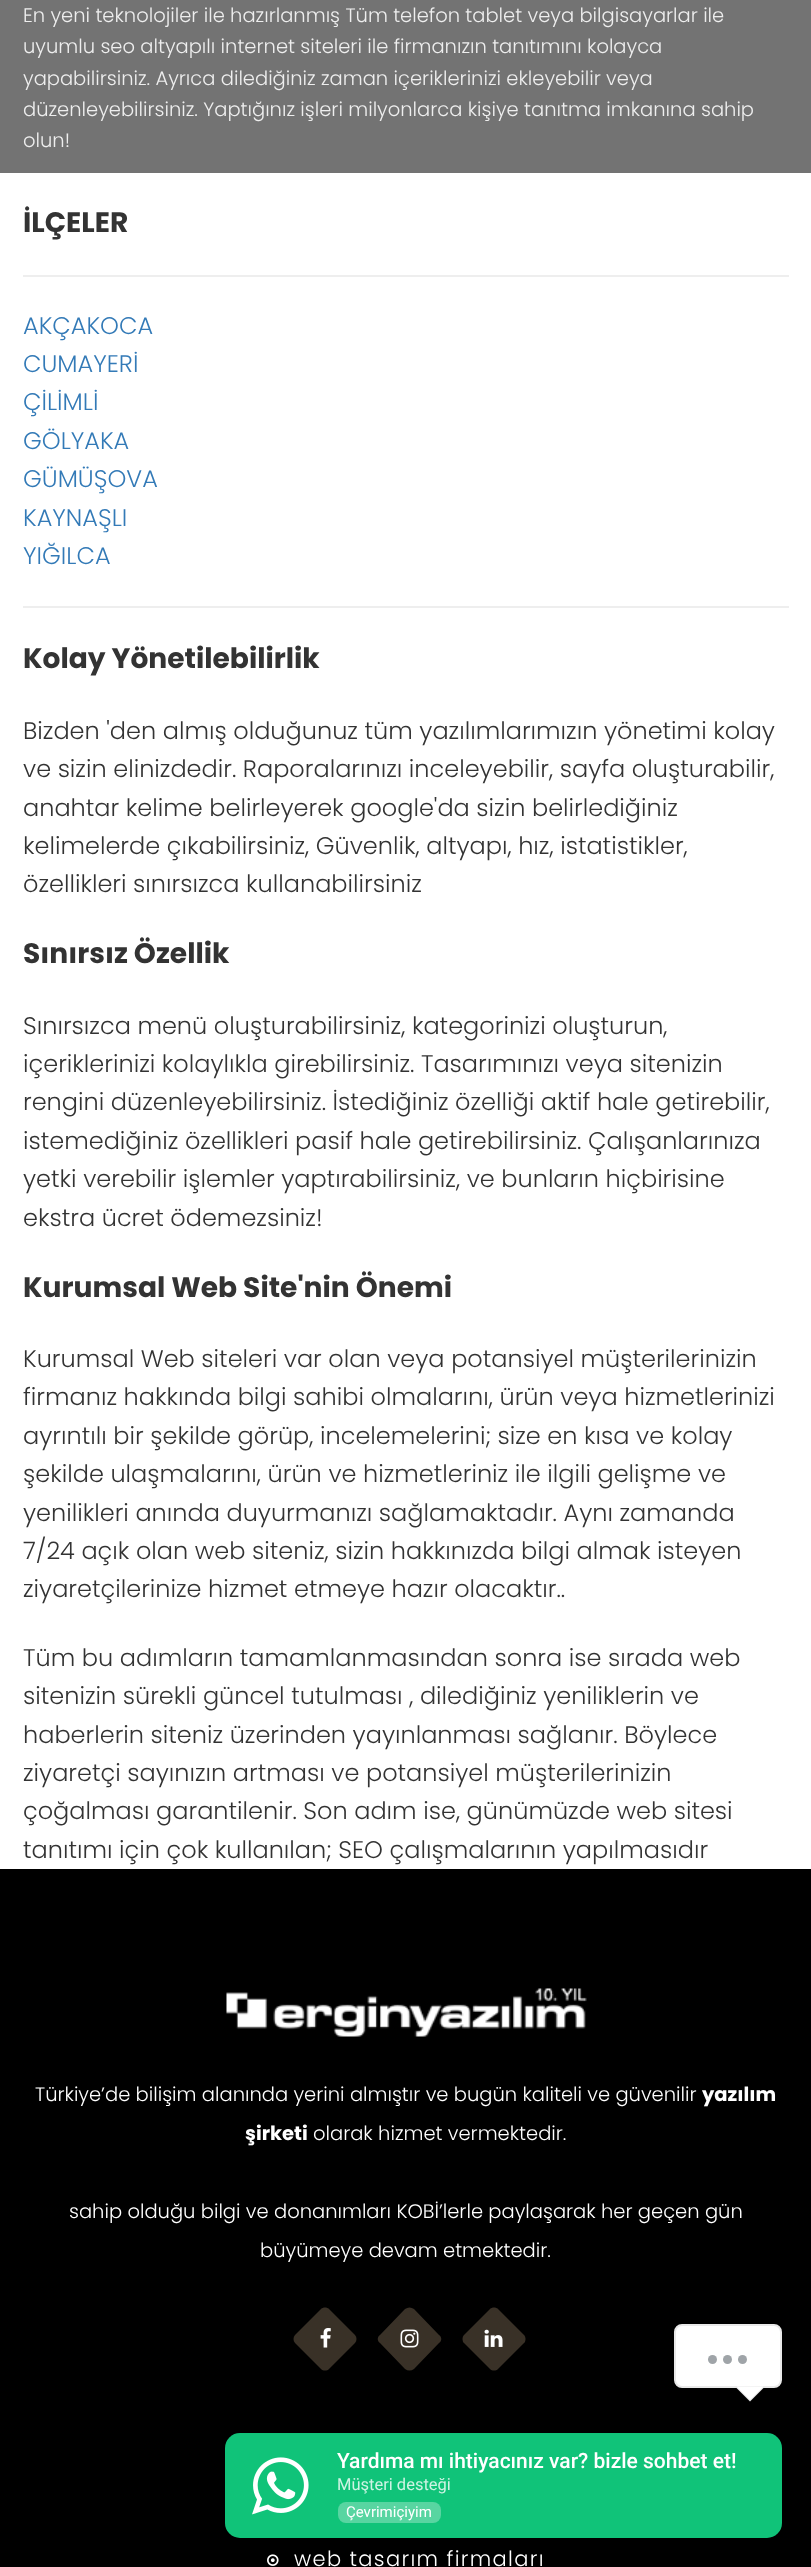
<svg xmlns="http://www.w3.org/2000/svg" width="811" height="2567">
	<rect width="100%" height="100%" fill="#FFFFFF" />
	<rect x="0" y="0" width="811" height="173" fill="#737373" />
	<g font-family="Poppins" font-size="19.5" font-weight="300" fill="#EEEEEE">
		<text x="23" y="22">En yeni teknolojiler ile hazırlanmış Tüm telefon tablet veya bilgisayarlar ile</text>
		<text x="23" y="53">uyumlu seo altyapılı internet siteleri ile firmanızın tanıtımını kolayca</text>
		<text x="23" y="85">yapabilirsiniz. Ayrıca dilediğiniz zaman içeriklerinizi ekleyebilir veya</text>
		<text x="23" y="116">düzenleyebilirsiniz. Yaptığınız işleri milyonlarca kişiye tanıtma imkanına sahip</text>
		<text x="23" y="147">olun!</text>
	</g>
	<text x="23" y="232" font-family="Poppins" font-size="28.1" font-weight="700" fill="#333333">İLÇELER</text>
	<rect x="23" y="275" width="766" height="2" fill="#EEEEEE" />
	<g font-family="Poppins" font-size="24" font-weight="300" fill="#337AB7">
		<text x="23" y="334">AKÇAKOCA</text>
		<text x="23" y="372">CUMAYERİ</text>
		<text x="23" y="410">ÇİLİMLİ</text>
		<text x="23" y="449">GÖLYAKA</text>
		<text x="23" y="487">GÜMÜŞOVA</text>
		<text x="23" y="526">KAYNAŞLI</text>
		<text x="23" y="564">YIĞILCA</text>
	</g>
	<rect x="23" y="606" width="766" height="2" fill="#EEEEEE" />
	<text x="23" y="668" font-family="Poppins" font-size="28.1" font-weight="700" fill="#333333">Kolay Yönetilebilirlik</text>
	<g font-family="Poppins" font-size="24" font-weight="300" fill="#333333">
		<text x="23" y="739">Bizden 'den almış olduğunuz tüm yazılımlarımızın yönetimi kolay</text>
		<text x="23" y="777">ve sizin elinizdedir. Raporalarınızı inceleyebilir, sayfa oluşturabilir,</text>
		<text x="23" y="816">anahtar kelime belirleyerek google'da sizin belirlediğiniz</text>
		<text x="23" y="854">kelimelerde çıkabilirsiniz, Güvenlik, altyapı, hız, istatistikler,</text>
		<text x="23" y="892">özellikleri sınırsızca kullanabilirsiniz</text>
	</g>
	<text x="23" y="963" font-family="Poppins" font-size="28.1" font-weight="700" fill="#333333">Sınırsız Özellik</text>
	<g font-family="Poppins" font-size="24" font-weight="300" fill="#333333">
		<text x="23" y="1034">Sınırsızca menü oluşturabilirsiniz, kategorinizi oluşturun,</text>
		<text x="23" y="1072">içeriklerinizi kolaylıkla girebilirsiniz. Tasarımınızı veya sitenizin</text>
		<text x="23" y="1110">rengini düzenleyebilirsiniz. İstediğiniz özelliği aktif hale getirebilir,</text>
		<text x="23" y="1149">istemediğiniz özellikleri pasif hale getirebilirsiniz. Çalışanlarınıza</text>
		<text x="23" y="1187">yetki verebilir işlemler yaptırabilirsiniz, ve bunların hiçbirisine</text>
		<text x="23" y="1226">ekstra ücret ödemezsiniz!</text>
	</g>
	<text x="23" y="1297" font-family="Poppins" font-size="28.1" font-weight="700" fill="#333333">Kurumsal Web Site'nin Önemi</text>
	<g font-family="Poppins" font-size="24" font-weight="300" fill="#333333">
		<text x="23" y="1367">Kurumsal Web siteleri var olan veya potansiyel müşterilerinizin</text>
		<text x="23" y="1405">firmanız hakkında bilgi sahibi olmalarını, ürün veya hizmetlerinizi</text>
		<text x="23" y="1444">ayrıntılı bir şekilde görüp, incelemelerini; size en kısa ve kolay</text>
		<text x="23" y="1482">şekilde ulaşmalarını, ürün ve hizmetleriniz ile ilgili gelişme ve</text>
		<text x="23" y="1521">yenilikleri anında duyurmanızı sağlamaktadır. Aynı zamanda</text>
		<text x="23" y="1559">7/24 açık olan web siteniz, sizin hakkınızda bilgi almak isteyen</text>
		<text x="23" y="1597">ziyaretçilerinize hizmet etmeye hazır olacaktır..</text>
		<text x="23" y="1666">Tüm bu adımların tamamlanmasından sonra ise sırada web</text>
		<text x="23" y="1704">sitenizin sürekli güncel tutulması , dilediğiniz yeniliklerin ve</text>
		<text x="23" y="1743">haberlerin siteniz üzerinden yayınlanması sağlanır. Böylece</text>
		<text x="23" y="1781">ziyaretçi sayınızın artması ve potansiyel müşterilerinizin</text>
		<text x="23" y="1819">çoğalması garantilenir. Son adım ise, günümüzde web sitesi</text>
		<text x="23" y="1858">tanıtımı için çok kullanılan; SEO çalışmalarının yapılmasıdır</text>
	</g>
	<rect x="0" y="1869" width="811" height="698" fill="#000000" />
	<image x="226" y="1988" width="361" height="49" href="assets/img1.png" />
	<text x="35" y="2101" font-family="Poppins" font-size="19.5" font-weight="300" fill="#FFFFFF">Türkiye’de bilişim alanında yerini almıştır ve bugün kaliteli ve güvenilir</text>
	<g font-family="Poppins" font-size="19.5" font-weight="700" fill="#FFFFFF">
		<text x="702" y="2101">yazılım</text>
		<text x="245" y="2140">şirketi</text>
	</g>
	<g font-family="Poppins" font-size="19.5" font-weight="300" fill="#FFFFFF">
		<text x="313" y="2140">olarak hizmet vermektedir.</text>
		<text x="69" y="2218">sahip olduğu bilgi ve donanımları KOBİ’lerle paylaşarak her geçen gün</text>
		<text x="260" y="2257">büyümeye devam etmektedir.</text>
	</g>
	<path d="M329 2309L355 2335C357 2337 357 2341 355 2343L329 2369C327 2371 323 2371 321 2369L295 2343C293 2341 293 2337 295 2335L321 2309C323 2307 327 2307 329 2309Z" fill="#393127" />
	<image x="320" y="2328" width="11" height="20" href="assets/img2.png" />
	<path d="M414 2309L439 2335C442 2337 442 2341 439 2343L414 2369C411 2371 408 2371 405 2369L380 2343C377 2341 377 2337 380 2335L405 2309C408 2307 411 2307 414 2309Z" fill="#393127" />
	<image x="400" y="2329" width="19" height="19" href="assets/img3.png" />
	<path d="M498 2309L524 2335C526 2337 526 2341 524 2343L498 2369C496 2371 492 2371 490 2369L464 2343C462 2341 462 2337 464 2335L490 2309C492 2307 496 2307 498 2309Z" fill="#393127" />
	<image x="484" y="2329" width="19" height="18" href="assets/img4.png" />
	<image x="267" y="2554" width="12" height="12" href="assets/img5.png" />
	<text x="294" y="2566" font-family="Poppins" font-size="21" font-weight="300" letter-spacing="1.35" fill="#FFFFFF">web tasarım firmaları</text>
	<rect x="675" y="2325" width="106" height="62" rx="7" fill="#FFFFFF" stroke="#E9E9E9" stroke-width="2" />
	<circle cx="712.5" cy="2359.5" r="4.5" fill="#9FA4A8" />
	<circle cx="727.5" cy="2359.5" r="4.5" fill="#9FA4A8" />
	<circle cx="742.5" cy="2359.5" r="4.5" fill="#9FA4A8" />
	<path d="M735 2386.5H765L750 2401.5Z" fill="#E9E9E9" />
	<path d="M736.5 2386.5H763.5L750 2400Z" fill="#FFFFFF" />
	<rect x="225" y="2433" width="557" height="105" rx="15" fill="#10C379" />
	<image x="252" y="2457" width="57" height="58" href="assets/img6.png" />
	<text x="337" y="2468" font-family="Roboto" font-size="21" font-weight="500" fill="#FFFFFF">Yardıma mı ihtiyacınız var? bizle sohbet et!</text>
	<text x="337" y="2490" font-family="Roboto" font-size="16.5" fill="#CFF3E4">Müşteri desteği</text>
	<rect x="338" y="2502" width="103" height="21" rx="8" fill="#58D5A1" />
	<text x="346" y="2517" font-family="Roboto" font-size="15" fill="#FFFFFF">Çevrimiçiyim</text>
</svg>
